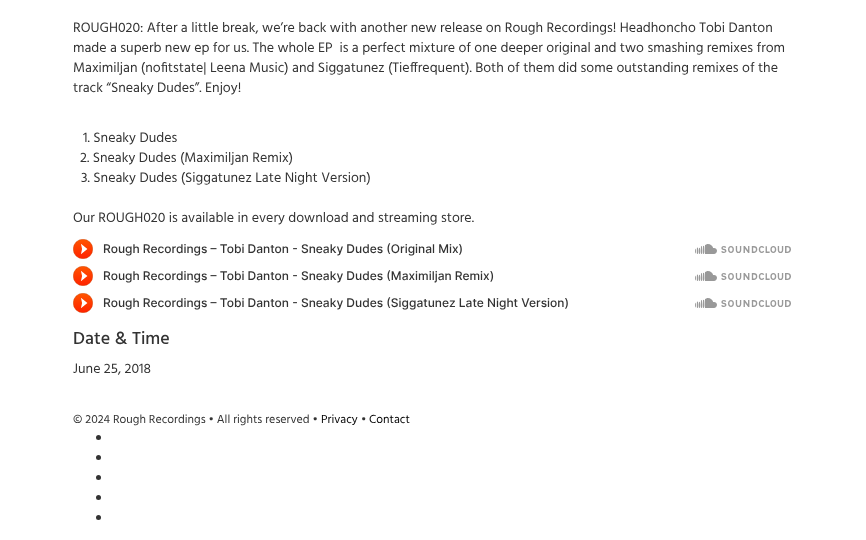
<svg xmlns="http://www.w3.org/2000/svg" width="866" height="540">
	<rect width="100%" height="100%" fill="#FFFFFF" />
	<g font-family="Hind" font-size="14" fill="#333333">
		<text x="73" y="32">ROUGH020: After a little break, we’re back with another new release on Rough Recordings! Headhoncho Tobi Danton</text>
		<text x="73" y="52" xml:space="preserve">made a superb new ep for us. The whole EP  is a perfect mixture of one deeper original and two smashing remixes from</text>
		<text x="73" y="72">Maximiljan (nofitstate| Leena Music) and Siggatunez (Tieffrequent). Both of them did some outstanding remixes of the</text>
		<text x="73" y="92">track “Sneaky Dudes”. Enjoy!</text>
		<text x="83" y="142">1. Sneaky Dudes</text>
		<text x="80" y="162">2. Sneaky Dudes (Maximiljan Remix)</text>
		<text x="81" y="182">3. Sneaky Dudes (Siggatunez Late Night Version)</text>
		<text x="73" y="222">Our ROUGH020 is available in every download and streaming store.</text>
	</g>
	<image x="73" y="239" width="718" height="20" href="assets/img1.png" />
	<image x="73" y="266" width="718" height="20" href="assets/img2.png" />
	<image x="73" y="293" width="718" height="20" href="assets/img3.png" />
	<text x="73" y="344" font-family="Hind" font-size="18" font-weight="500" fill="#333333">Date &amp; Time</text>
	<text x="73" y="373" font-family="Hind" font-size="14" fill="#333333">June 25, 2018</text>
	<text x="73" y="423" font-family="Hind" font-size="12" fill="#333333">© 2024 Rough Recordings • All rights reserved •</text>
	<text x="321" y="423" font-family="Hind" font-size="12" fill="#000000">Privacy</text>
	<text x="361" y="423" font-family="Hind" font-size="12" fill="#333333">•</text>
	<text x="369" y="423" font-family="Hind" font-size="12" fill="#000000">Contact</text>
	<circle cx="98.5" cy="437.5" r="2.5" fill="#333333" />
	<circle cx="98.5" cy="457.5" r="2.5" fill="#333333" />
	<circle cx="98.5" cy="477.5" r="2.5" fill="#333333" />
	<circle cx="98.5" cy="497.5" r="2.5" fill="#333333" />
	<circle cx="98.5" cy="517.5" r="2.5" fill="#333333" />
</svg>
